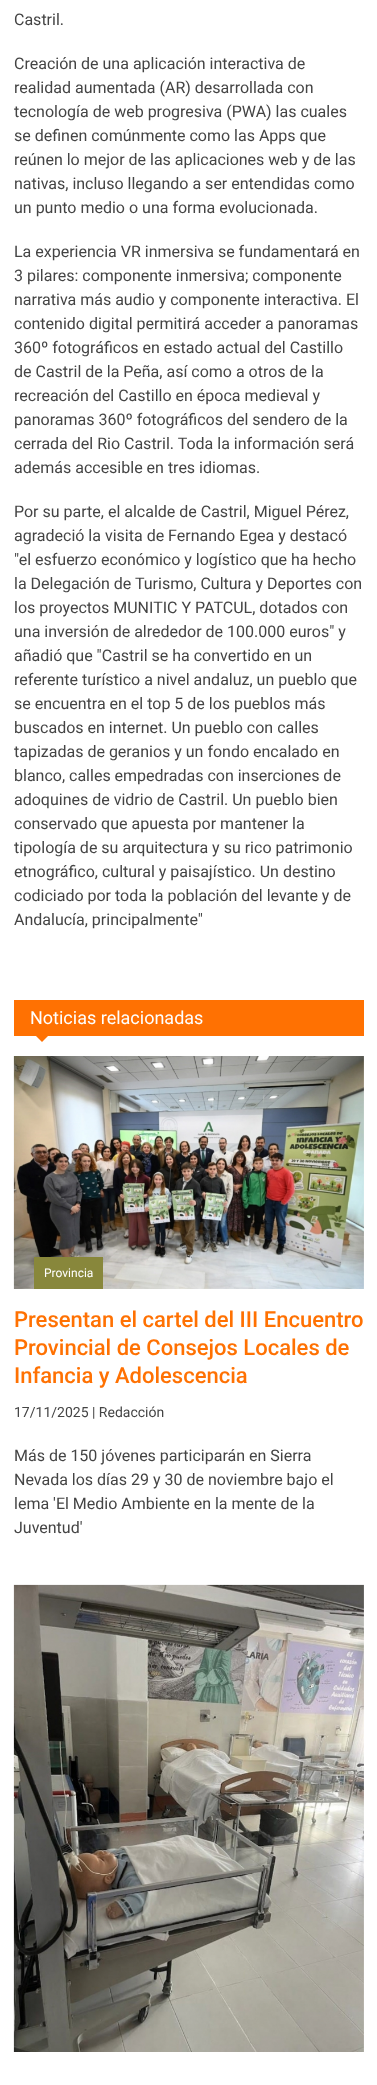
<svg xmlns="http://www.w3.org/2000/svg" width="377" height="2085">
	<rect width="100%" height="100%" fill="#FFFFFF" />
	<g font-family="Roboto" font-size="16" fill="#444444">
		<text x="14" y="25">Castril.</text>
		<text x="14" y="69">Creación de una aplicación interactiva de</text>
		<text x="14" y="93">realidad aumentada (AR) desarrollada con</text>
		<text x="14" y="117">tecnología de web progresiva (PWA) las cuales</text>
		<text x="14" y="141">se definen comúnmente como las Apps que</text>
		<text x="14" y="165">reúnen lo mejor de las aplicaciones web y de las</text>
		<text x="14" y="189">nativas, incluso llegando a ser entendidas como</text>
		<text x="14" y="213">un punto medio o una forma evolucionada.</text>
		<text x="14" y="257">La experiencia VR inmersiva se fundamentará en</text>
		<text x="14" y="281">3 pilares: componente inmersiva; componente</text>
		<text x="14" y="305">narrativa más audio y componente interactiva. El</text>
		<text x="14" y="329">contenido digital permitirá acceder a panoramas</text>
		<text x="14" y="353">360º fotográficos en estado actual del Castillo</text>
		<text x="14" y="377">de Castril de la Peña, así como a otros de la</text>
		<text x="14" y="401">recreación del Castillo en época medieval y</text>
		<text x="14" y="425">panoramas 360º fotográficos del sendero de la</text>
		<text x="14" y="449">cerrada del Rio Castril. Toda la información será</text>
		<text x="14" y="473">además accesible en tres idiomas.</text>
		<text x="14" y="517">Por su parte, el alcalde de Castril, Miguel Pérez,</text>
		<text x="14" y="541">agradeció la visita de Fernando Egea y destacó</text>
		<text x="14" y="565">"el esfuerzo económico y logístico que ha hecho</text>
		<text x="14" y="589">la Delegación de Turismo, Cultura y Deportes con</text>
		<text x="14" y="613">los proyectos MUNITIC Y PATCUL, dotados con</text>
		<text x="14" y="637">una inversión de alrededor de 100.000 euros" y</text>
		<text x="14" y="661">añadió que "Castril se ha convertido en un</text>
		<text x="14" y="685">referente turístico a nivel andaluz, un pueblo que</text>
		<text x="14" y="709">se encuentra en el top 5 de los pueblos más</text>
		<text x="14" y="733">buscados en internet. Un pueblo con calles</text>
		<text x="14" y="757">tapizadas de geranios y un fondo encalado en</text>
		<text x="14" y="781">blanco, calles empedradas con inserciones de</text>
		<text x="14" y="805">adoquines de vidrio de Castril. Un pueblo bien</text>
		<text x="14" y="829">conservado que apuesta por mantener la</text>
		<text x="14" y="853">tipología de su arquitectura y su rico patrimonio</text>
		<text x="14" y="877">etnográfico, cultural y paisajístico. Un destino</text>
		<text x="14" y="901">codiciado por toda la población del levante y de</text>
		<text x="14" y="925">Andalucía, principalmente"</text>
	</g>
	<rect x="14" y="1000" width="350" height="36" fill="#FF7102" />
	<text x="30" y="1024" font-family="Roboto" font-size="18" fill="#FFFFFF">Noticias relacionadas</text>
	<path d="M36 1036H48L42 1042Z" fill="#FF7102" />
	<image x="13" y="1056" width="351" height="233" href="assets/img1.png" />
	<rect x="34" y="1257" width="69" height="32" fill="#88873B" />
	<text x="44" y="1277" font-family="Roboto" font-size="12" fill="#FFFFFF">Provincia</text>
	<g font-family="Roboto" font-size="22" font-weight="500" fill="#FF7102">
		<text x="14" y="1327">Presentan el cartel del III Encuentro</text>
		<text x="14" y="1355">Provincial de Consejos Locales de</text>
		<text x="14" y="1383">Infancia y Adolescencia</text>
	</g>
	<text x="14" y="1417" font-family="Roboto" font-size="14" fill="#444444">17/11/2025 | Redacción</text>
	<g font-family="Roboto" font-size="16" fill="#444444">
		<text x="14" y="1461">Más de 150 jóvenes participarán en Sierra</text>
		<text x="14" y="1485">Nevada los días 29 y 30 de noviembre bajo el</text>
		<text x="14" y="1509">lema 'El Medio Ambiente en la mente de la</text>
		<text x="14" y="1533">Juventud'</text>
	</g>
	<image x="13" y="1584" width="351" height="468" href="assets/img2.png" />
</svg>
